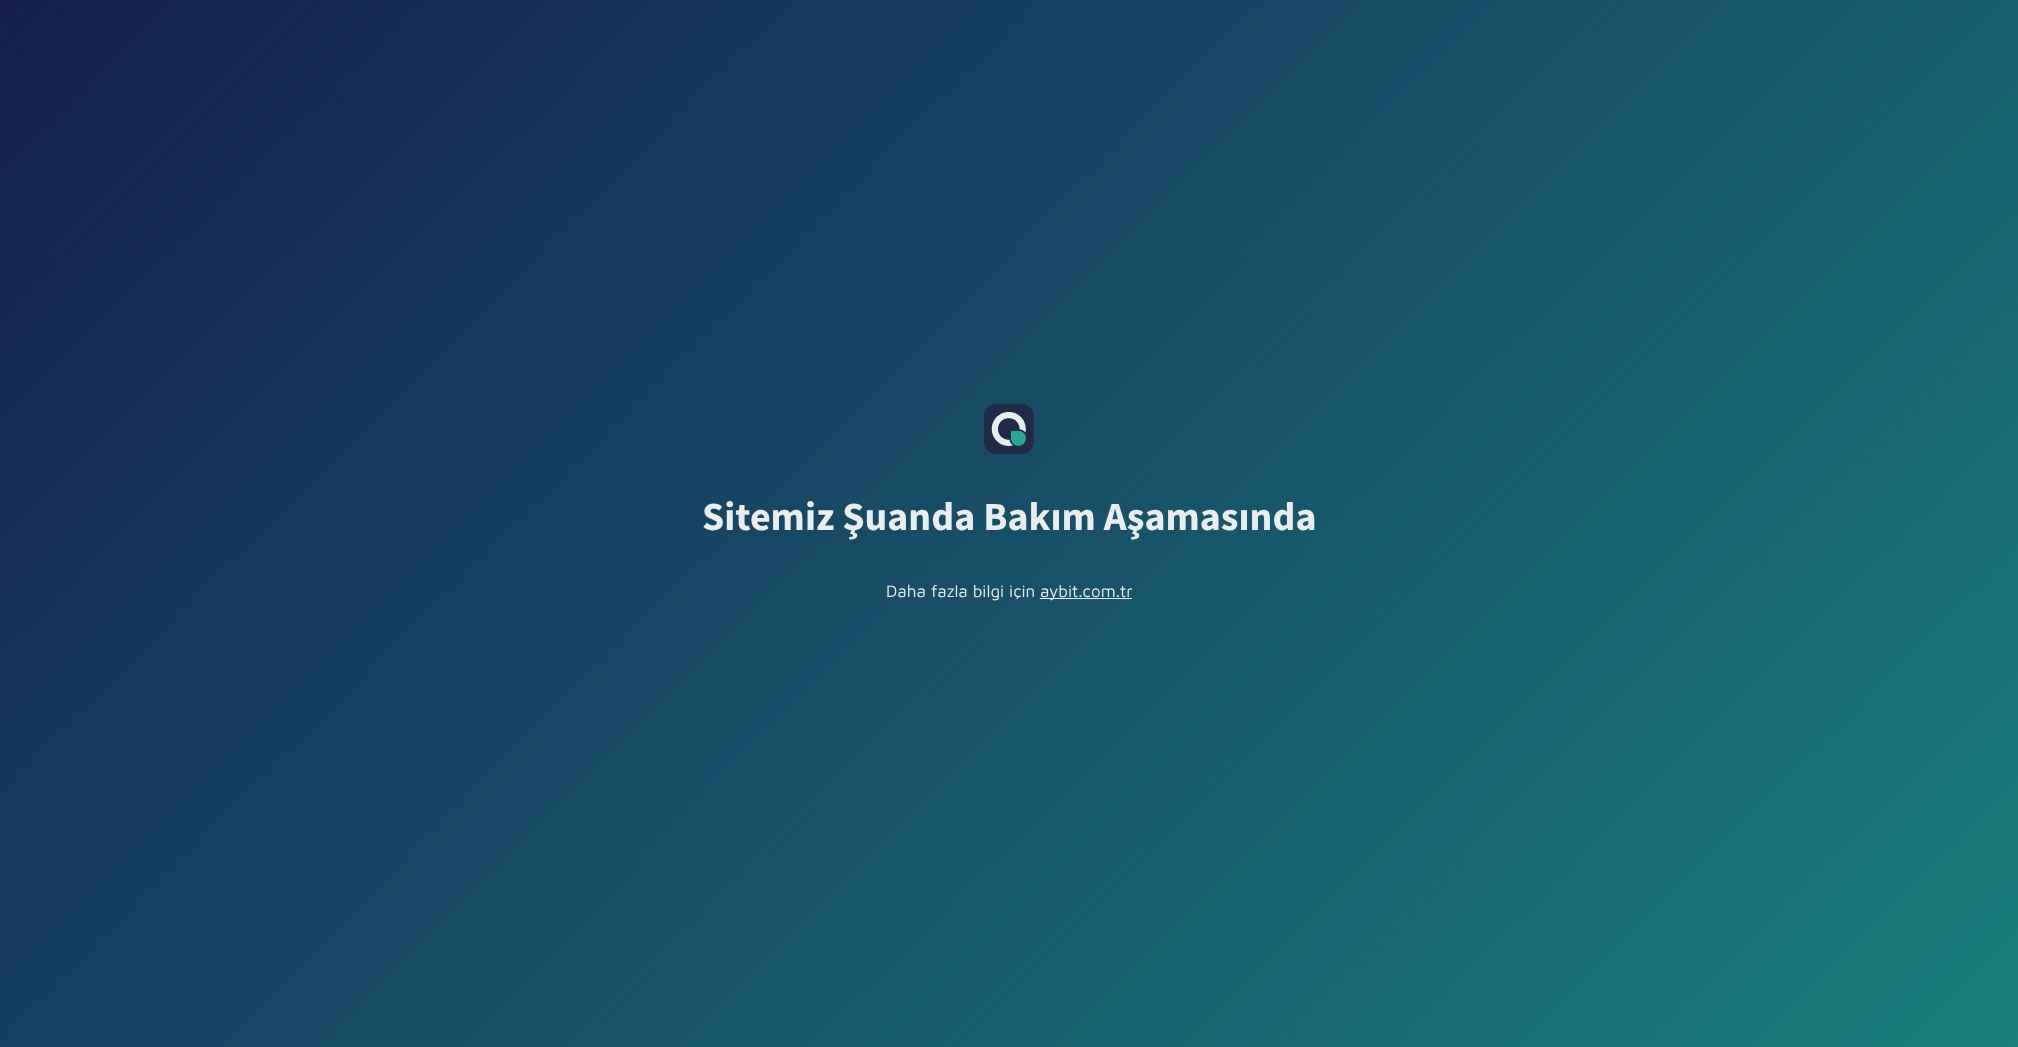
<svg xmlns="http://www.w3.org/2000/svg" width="2018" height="1047">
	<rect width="100%" height="100%" fill="#FFFFFF" />
	<image x="0" y="0" width="2018" height="1047" href="assets/img1.png" />
	<image x="984" y="404" width="50" height="50" href="assets/img2.png" />
	<text x="702" y="530" font-family="Source Sans Pro" font-size="40" font-weight="700" fill="#E8EDF0">Sitemiz Şuanda Bakım Aşamasında</text>
	<text x="886" y="597" font-family="Maven Pro" font-size="17" fill="#E8EDF0">Daha fazla bilgi için</text>
	<rect x="1040" y="598" width="92" height="1" fill="#FFFFFF" fill-opacity="0.9" />
	<text x="1040" y="597" font-family="Maven Pro" font-size="17" fill="#E8EDF0">aybit.com.tr</text>
</svg>
